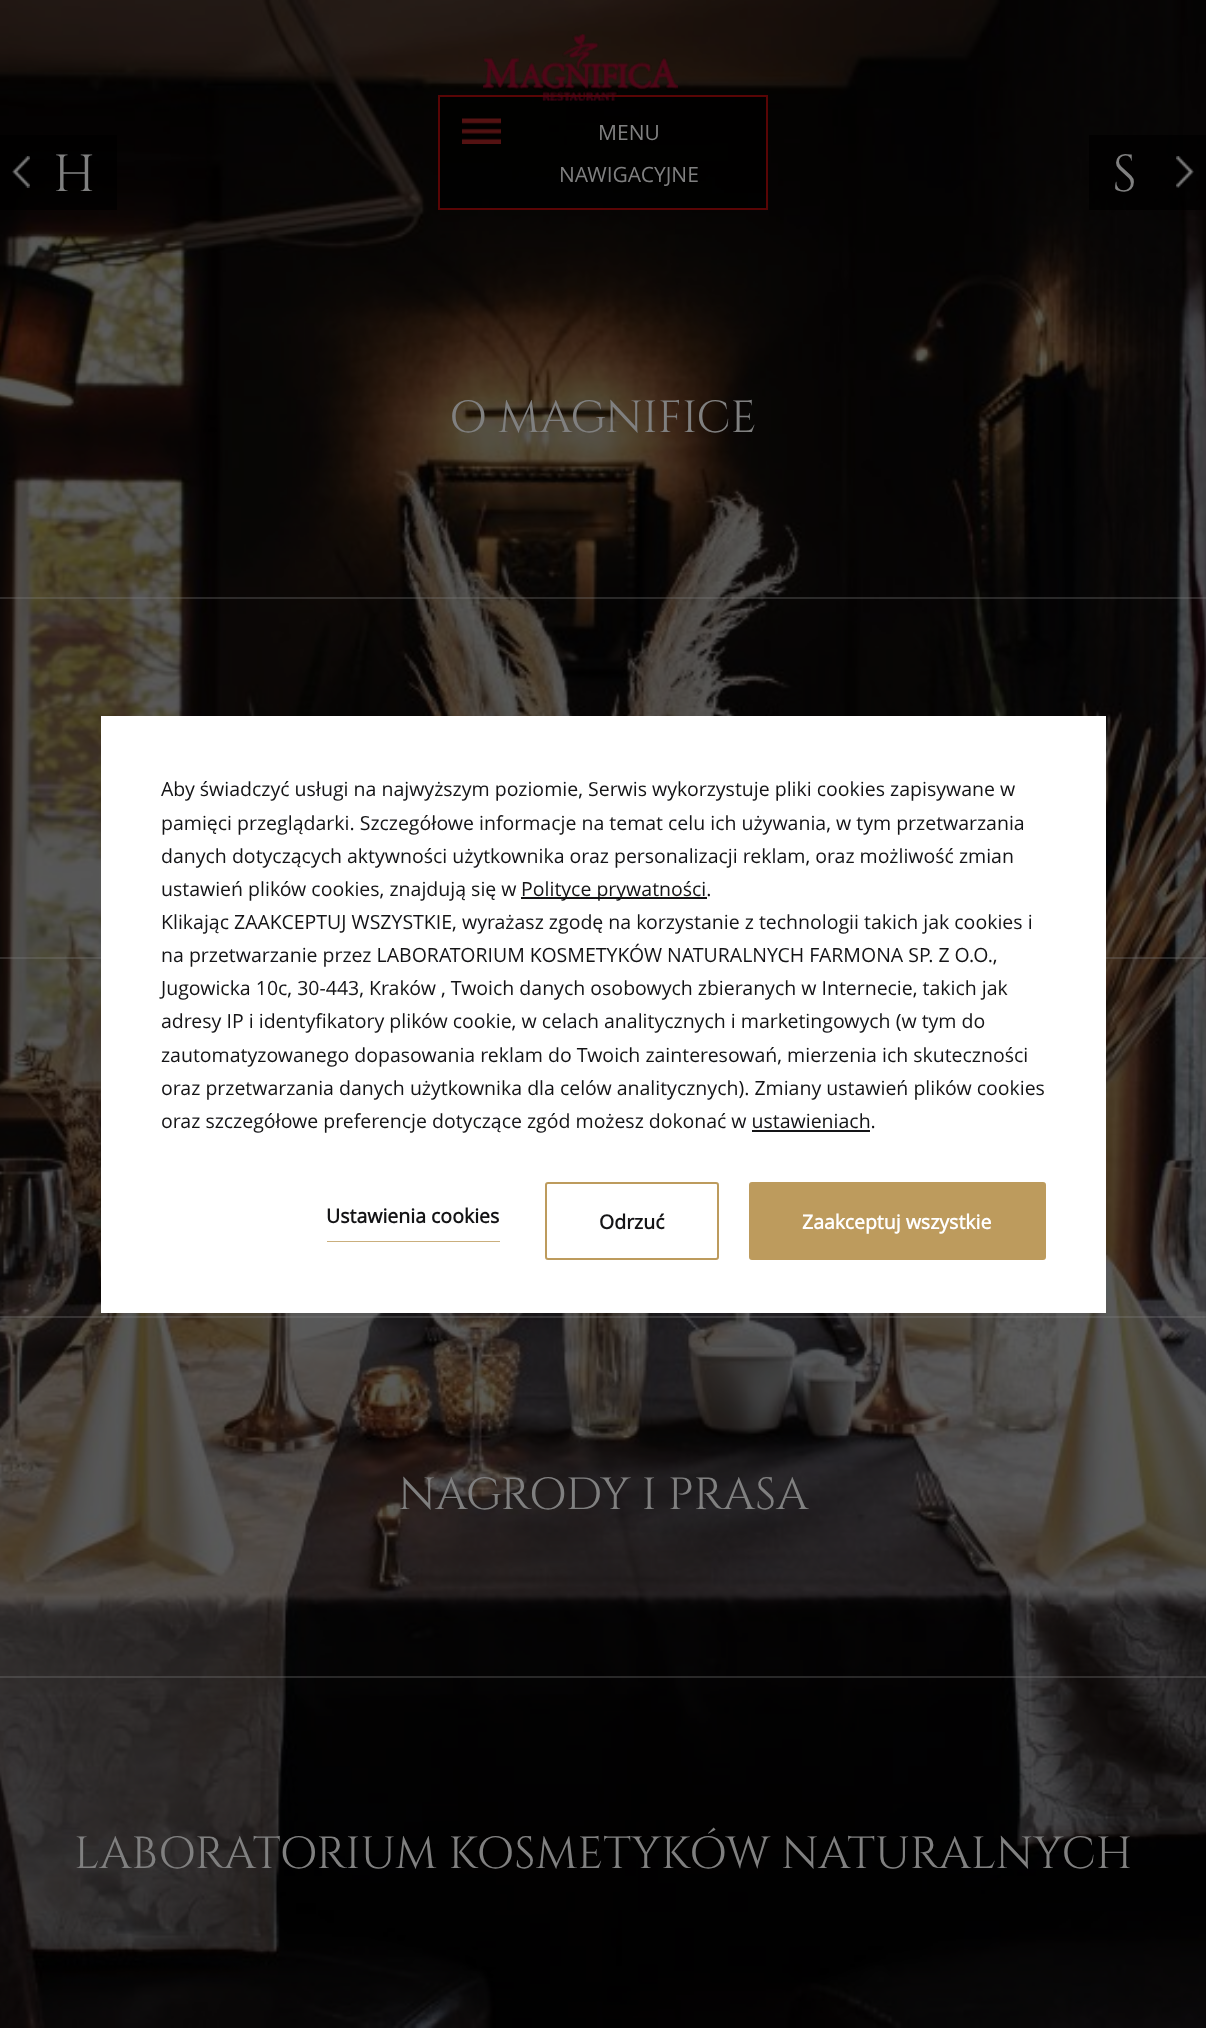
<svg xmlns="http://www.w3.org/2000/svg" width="1206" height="2028">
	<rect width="100%" height="100%" fill="#FFFFFF" />
	<image x="0" y="0" width="1206" height="2028" href="assets/img4.png" />
	<rect x="439" y="96" width="328" height="113" fill="#000000" fill-opacity="0.75" stroke="#590505" stroke-width="2" />
	<image x="483" y="34" width="195" height="67" href="assets/img1.png" />
	<image x="462" y="118" width="39" height="26" href="assets/img2.png" />
	<g font-family="Open Sans" font-size="21" fill="#808080">
		<text x="598" y="140">MENU</text>
		<text x="559" y="182">NAWIGACYJNE</text>
	</g>
	<image x="483" y="34" width="195" height="67" href="assets/img3.png" />
	<rect x="0" y="135" width="117" height="75" fill="#000000" fill-opacity="0.7" />
	<image x="12" y="156" width="18" height="32" href="assets/img5.png" />
	<text x="53" y="191" font-family="cinzel" font-size="52" fill="#808080">H</text>
	<rect x="1089" y="135" width="117" height="75" fill="#000000" fill-opacity="0.7" />
	<text x="1112" y="191" font-family="cinzel" font-size="52" fill="#808080">S</text>
	<image x="1176" y="156" width="18" height="32" href="assets/img6.png" />
	<text x="449" y="432" font-family="cinzel" font-size="45" fill="#808080">O MAGNIFICE</text>
	<rect x="0" y="597" width="1206" height="2" fill="#808080" fill-opacity="0.3" />
	<rect x="0" y="957" width="1206" height="2" fill="#808080" fill-opacity="0.3" />
	<rect x="0" y="1316" width="1206" height="2" fill="#808080" fill-opacity="0.3" />
	<text x="398" y="1509" font-family="cinzel" font-size="45" fill="#808080">NAGRODY I PRASA</text>
	<rect x="0" y="1676" width="1206" height="2" fill="#808080" fill-opacity="0.3" />
	<text x="74" y="1868" font-family="cinzel" font-size="45" fill="#808080">LABORATORIUM KOSMETYKÓW NATURALNYCH</text>
	<rect x="101" y="716" width="1005" height="597" fill="#FFFFFF" />
	<g font-family="Open Sans" font-size="19.5" fill="#141416">
		<text x="161" y="796">Aby świadczyć usługi na najwyższym poziomie, Serwis wykorzystuje pliki cookies zapisywane w</text>
		<text x="161" y="830">pamięci przeglądarki. Szczegółowe informacje na temat celu ich używania, w tym przetwarzania</text>
		<text x="161" y="863">danych dotyczących aktywności użytkownika oraz personalizacji reklam, oraz możliwość zmian</text>
		<text x="161" y="896">ustawień plików cookies, znajdują się w</text>
	</g>
	<rect x="521" y="897" width="186" height="2" fill="#141416" />
	<g font-family="Open Sans" font-size="19.5" fill="#141416">
		<text x="521" y="896">Polityce prywatności.</text>
		<text x="161" y="929">Klikając ZAAKCEPTUJ WSZYSTKIE, wyrażasz zgodę na korzystanie z technologii takich jak cookies i</text>
		<text x="161" y="962">na przetwarzanie przez LABORATORIUM KOSMETYKÓW NATURALNYCH FARMONA SP. Z O.O.,</text>
		<text x="161" y="995">Jugowicka 10c, 30-443, Kraków , Twoich danych osobowych zbieranych w Internecie, takich jak</text>
		<text x="161" y="1028">adresy IP i identyfikatory plików cookie, w celach analitycznych i marketingowych (w tym do</text>
		<text x="161" y="1062">zautomatyzowanego dopasowania reklam do Twoich zainteresowań, mierzenia ich skuteczności</text>
		<text x="161" y="1095">oraz przetwarzania danych użytkownika dla celów analitycznych). Zmiany ustawień plików cookies</text>
		<text x="161" y="1128">oraz szczegółowe preferencje dotyczące zgód możesz dokonać w ustawieniach.</text>
	</g>
	<rect x="752" y="1130" width="118" height="2" fill="#141416" />
	<text x="326" y="1223" font-family="Open Sans" font-size="19.5" font-weight="700" fill="#141416">Ustawienia cookies</text>
	<rect x="327" y="1241" width="173" height="1" fill="#CAAF7D" />
	<rect x="546" y="1183" width="172" height="76" rx="2" fill="none" stroke="#BD9B5D" stroke-width="2" />
	<text x="599" y="1229" font-family="Open Sans" font-size="19.5" font-weight="700" fill="#141416">Odrzuć</text>
	<rect x="750" y="1183" width="295" height="76" rx="2" fill="none" stroke="#BD9B5D" stroke-width="2" />
	<rect x="751" y="1184" width="293" height="74" fill="#BD9B5D" />
	<text x="802" y="1229" font-family="Open Sans" font-size="19.5" font-weight="700" fill="#FFFFFF">Zaakceptuj wszystkie</text>
</svg>
